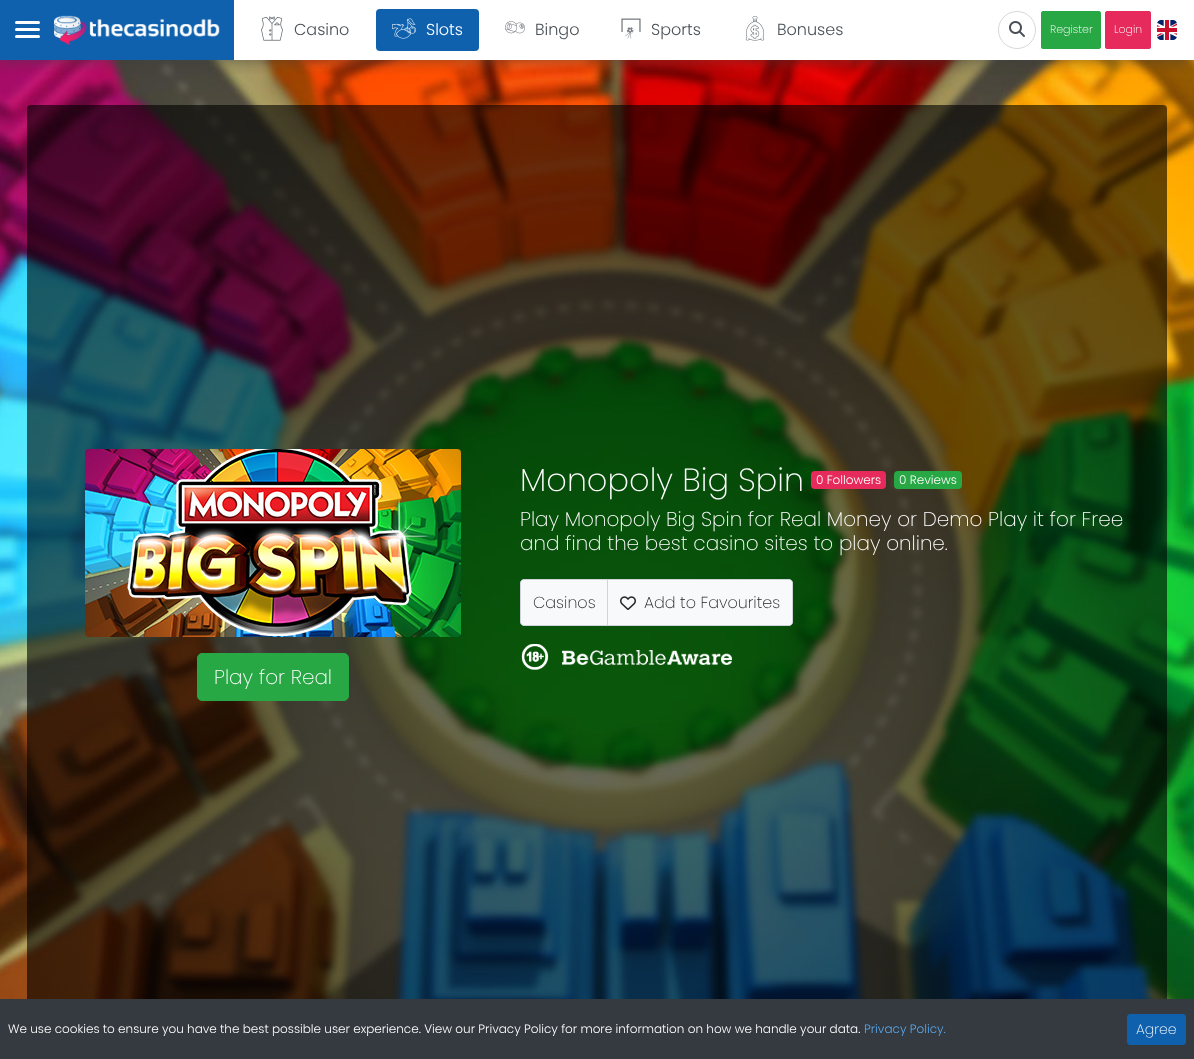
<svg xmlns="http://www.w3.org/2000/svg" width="1194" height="1059">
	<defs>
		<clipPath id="clip1"><rect x="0" y="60" width="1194" height="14" /></clipPath>
	</defs>
	<rect width="100%" height="100%" fill="#FFFFFF" />
	<image x="0" y="60" width="1194" height="939" href="assets/img9.png" />
	<g clip-path="url(#clip1)">
		<rect x="-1" y="-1" width="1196" height="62" fill="#3C3C3C" fill-opacity="0.55" filter="blur(7.5px)" />
	</g>
	<rect x="0" y="0" width="234" height="60" fill="#0F61AE" />
	<rect x="15" y="28" width="25" height="3" rx="1.5" fill="#FFFFFF" />
	<rect x="15" y="21" width="25" height="3" rx="1.5" fill="#FFFFFF" />
	<rect x="15" y="35" width="25" height="3" rx="1.5" fill="#FFFFFF" />
	<image x="54" y="15" width="166" height="31" href="assets/img1.png" />
	<image x="261" y="16" width="22" height="25" href="assets/img2.png" />
	<text x="294" y="35" font-family="Poppins" font-size="16" font-weight="300" fill="#495057">Casino</text>
	<rect x="376" y="9" width="103" height="42" rx="4" fill="#0F61AE" />
	<image x="392" y="18" width="24" height="21" href="assets/img3.png" />
	<text x="426" y="35" font-family="Poppins" font-size="16" font-weight="300" fill="#FFFFFF">Slots</text>
	<image x="505" y="21" width="20" height="13" href="assets/img4.png" />
	<text x="535" y="35" font-family="Poppins" font-size="16" font-weight="300" fill="#495057">Bingo</text>
	<image x="621" y="18" width="20" height="21" href="assets/img5.png" />
	<text x="651" y="35" font-family="Poppins" font-size="16" font-weight="300" fill="#495057">Sports</text>
	<image x="745" y="16" width="20" height="25" href="assets/img6.png" />
	<text x="777" y="35" font-family="Poppins" font-size="16" font-weight="300" fill="#495057">Bonuses</text>
	<circle cx="1017" cy="30" r="18.5" fill="none" stroke="#D8D8D8" />
	<image x="1009" y="21" width="16" height="16" href="assets/img7.png" />
	<rect x="1041.5" y="11.5" width="59" height="37" rx="1.5" fill="#28A745" stroke="#28A745" />
	<text x="1050" y="33" font-family="Poppins" font-size="11" font-weight="200" fill="#FFFFFF">Register</text>
	<rect x="1105.5" y="11.5" width="45" height="37" rx="1.5" fill="#E62B5C" stroke="#E62B5C" />
	<text x="1114" y="33" font-family="Poppins" font-size="11" font-weight="200" fill="#FFFFFF">Login</text>
	<image x="1157" y="20" width="20" height="20" href="assets/img8.png" />
	<rect x="27" y="105" width="1140" height="939" rx="4" fill="#000000" fill-opacity="0.6" />
	<text x="520" y="491" font-family="Poppins" font-size="32" font-weight="200" fill="#FFFFFF">Monopoly Big Spin</text>
	<rect x="811" y="471" width="75" height="18" rx="4" fill="#E62B5C" />
	<text x="816" y="484" font-family="Poppins" font-size="12" font-weight="300" fill="#FFFFFF">0 Followers</text>
	<rect x="894" y="471" width="68" height="18" rx="4" fill="#28A745" />
	<text x="899" y="484" font-family="Poppins" font-size="12" font-weight="300" fill="#FFFFFF">0 Reviews</text>
	<g font-family="Poppins" font-size="20" font-weight="200" fill="#FFFFFF">
		<text x="520" y="526">Play Monopoly Big Spin for Real Money or Demo Play it for Free</text>
		<text x="520" y="550">and find the best casino sites to play online.</text>
	</g>
	<path d="M524 579.5H607.5V625.5H524C522 625.5 520.5 624 520.5 622V583C520.5 581 522 579.5 524 579.5Z" fill="#F8F9FA" stroke="#CED4DA" />
	<text x="533" y="608" font-family="Poppins" font-size="16" font-weight="200" fill="#212529">Casinos</text>
	<path d="M607.5 579.5H789C791 579.5 792.5 581 792.5 583V622C792.5 624 791 625.5 789 625.5H607.5Z" fill="#F8F9FA" stroke="#CED4DA" />
	<image x="620" y="596" width="16" height="14" href="assets/img10.png" />
	<text x="644" y="608" font-family="Poppins" font-size="16" font-weight="200" fill="#212529">Add to Favourites</text>
	<image x="521" y="644" width="28" height="26" href="assets/img11.png" />
	<image x="562" y="650" width="170" height="15" href="assets/img12.png" />
	<image x="85" y="449" width="376" height="188" href="assets/img13.png" />
	<rect x="197.5" y="653.5" width="151" height="47" rx="4.5" fill="#28A745" stroke="#28A745" />
	<text x="214" y="684" font-family="Poppins" font-size="20" font-weight="200" fill="#FFFFFF">Play for Real</text>
	<rect x="0" y="999" width="1194" height="60" fill="#343A40" />
	<text x="8" y="1033" font-family="Poppins" font-size="12" font-weight="300" fill="#FFFFFF">We use cookies to ensure you have the best possible user experience. View our Privacy Policy for more information on how we handle your data.</text>
	<text x="864" y="1033" font-family="Poppins" font-size="12" font-weight="300" fill="#58A8EC">Privacy Policy.</text>
	<rect x="1127.5" y="1014.5" width="58" height="30" rx="2.5" fill="#0F61AE" stroke="#0F61AE" />
	<text x="1136" y="1034" font-family="Poppins" font-size="14" font-weight="200" fill="#FFFFFF">Agree</text>
</svg>
